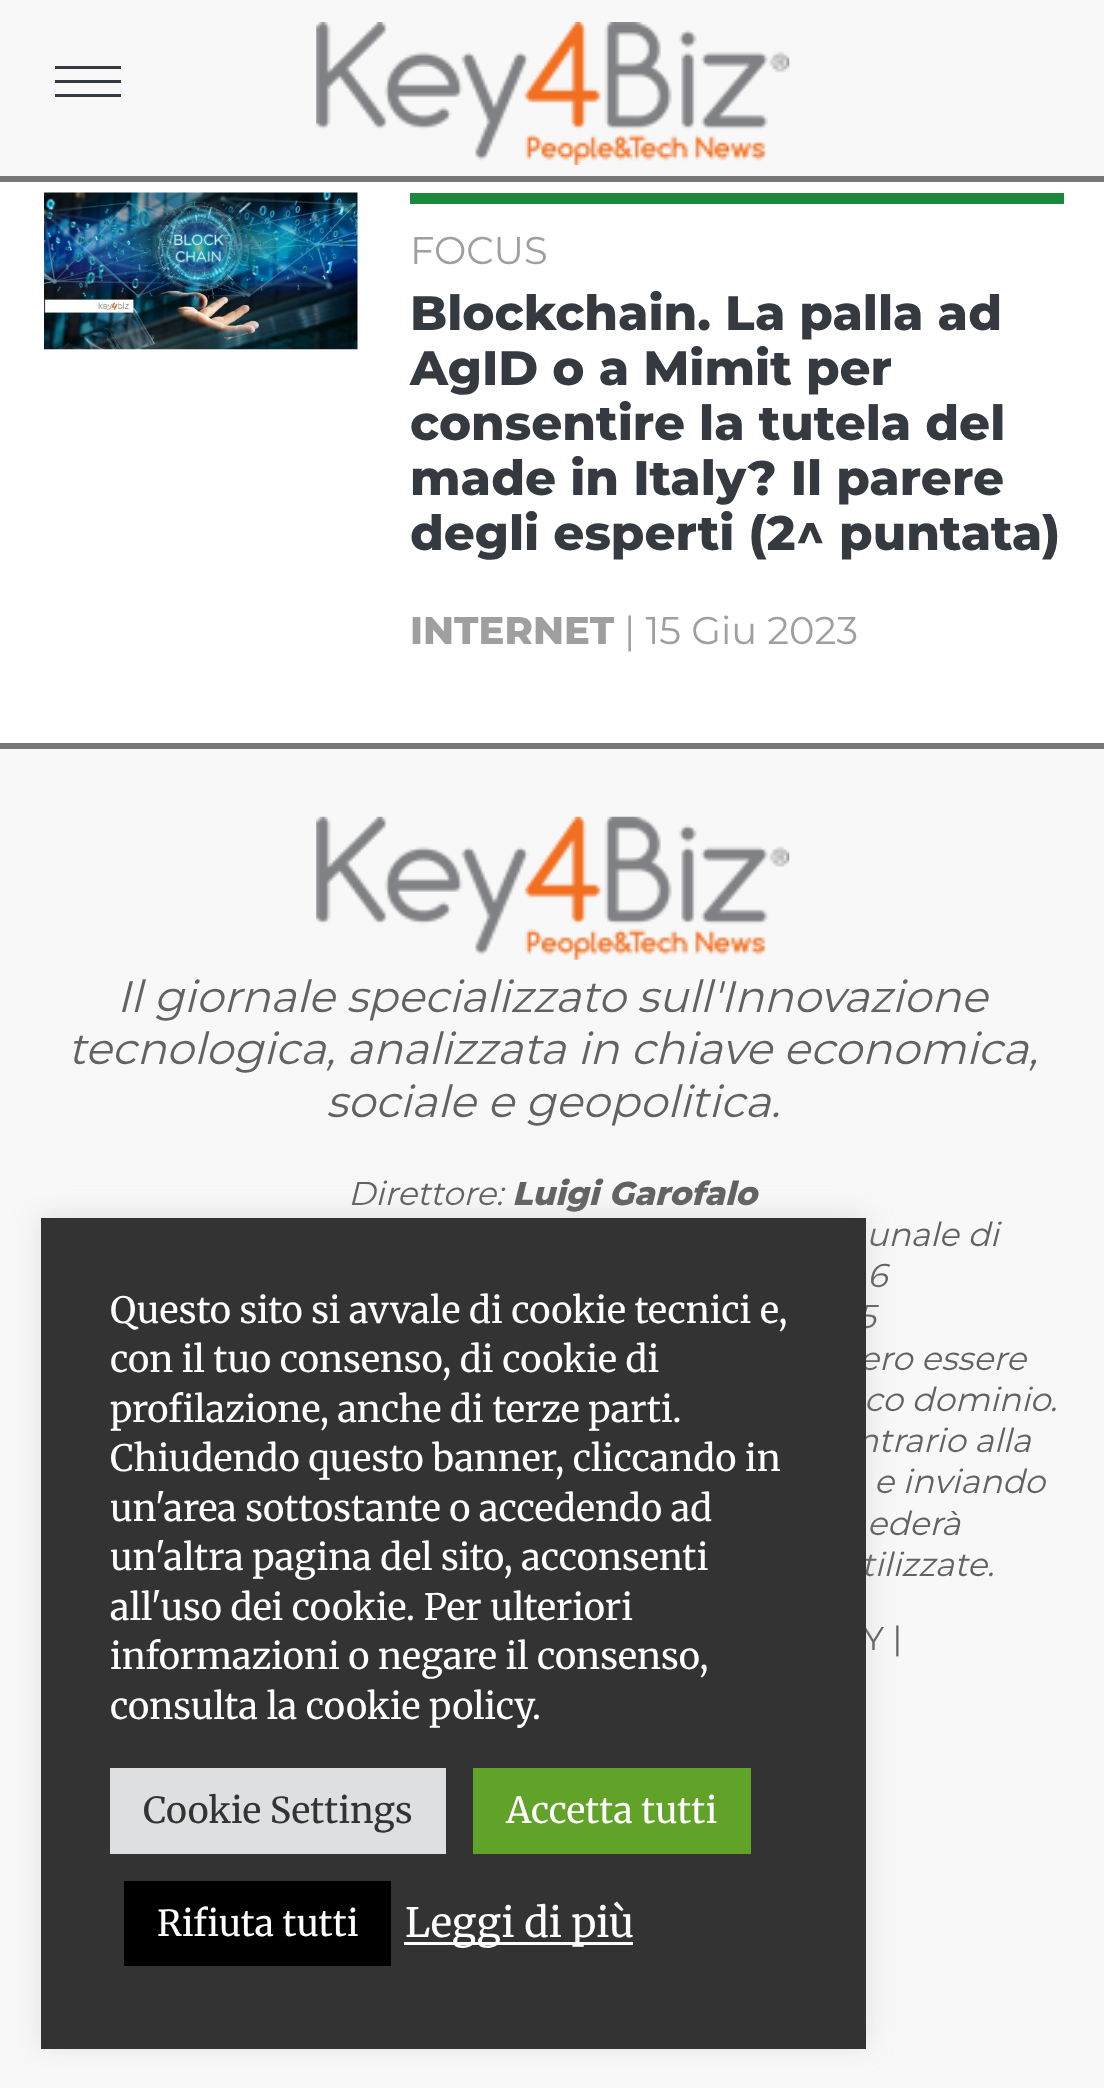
<svg xmlns="http://www.w3.org/2000/svg" width="1104" height="2088">
	<rect width="100%" height="100%" fill="#FFFFFF" />
	<rect x="0" y="0" width="1104" height="176" fill="#F8F8F8" />
	<rect x="0" y="176" width="1104" height="6" fill="#767779" />
	<rect x="55" y="66" width="66" height="3" fill="#343A40" />
	<rect x="55" y="80" width="66" height="3" fill="#343A40" />
	<rect x="55" y="94" width="66" height="3" fill="#343A40" />
	<image x="316" y="22" width="474" height="143" href="assets/img1.png" />
	<image x="44" y="192" width="314" height="158" href="assets/img2.png" />
	<rect x="410" y="193" width="654" height="11" fill="#1A893D" />
	<text x="410" y="264" font-family="Montserrat" font-size="38.5" fill="#9F9F9F">FOCUS</text>
	<g font-family="Montserrat" font-size="48.4" font-weight="800" fill="#343A40">
		<text x="410" y="330">Blockchain. La palla ad</text>
		<text x="410" y="385">AgID o a Mimit per</text>
		<text x="410" y="440">consentire la tutela del</text>
		<text x="410" y="495">made in Italy? Il parere</text>
		<text x="410" y="550">degli esperti (2^ puntata)</text>
	</g>
	<text x="410" y="644" font-family="Montserrat" font-size="38.5" font-weight="800" fill="#9F9F9F">INTERNET</text>
	<text x="624" y="644" font-family="Montserrat" font-size="38.5" fill="#9F9F9F">| 15 Giu 2023</text>
	<rect x="0" y="749" width="1104" height="1339" fill="#F8F8F8" />
	<rect x="0" y="743" width="1104" height="6" fill="#767779" />
	<image x="316" y="816" width="474" height="144" href="assets/img3.png" />
	<g font-family="Montserrat" font-size="44" font-style="italic" fill="#626262">
		<text x="117" y="1012">Il giornale specializzato sull'Innovazione</text>
		<text x="68" y="1064">tecnologica, analizzata in chiave economica,</text>
		<text x="326" y="1117">sociale e geopolitica.</text>
	</g>
	<text x="348" y="1205" font-family="Montserrat" font-size="33" font-style="italic" fill="#626262">Direttore:</text>
	<text x="512" y="1205" font-family="Montserrat" font-size="33" font-weight="800" font-style="italic" fill="#626262">Luigi Garofalo</text>
	<g font-family="Montserrat" font-size="33" font-style="italic" fill="#626262">
		<text x="866" y="1246">unale di</text>
		<text x="867" y="1287">6</text>
		<text x="857" y="1328">5</text>
		<text x="859" y="1370">ero essere</text>
		<text x="864" y="1411">co dominio.</text>
		<text x="856" y="1452">ntrario alla</text>
		<text x="874" y="1493">e inviando</text>
		<text x="867" y="1535">ederà</text>
		<text x="861" y="1576">tilizzate.</text>
	</g>
	<text x="863" y="1650" font-family="Montserrat" font-size="33" fill="#626262">Y |</text>
	<rect x="41" y="1216" width="825" height="830" fill="#ACABAB" fill-opacity="0.3" filter="blur(14px)" />
	<rect x="41" y="1218" width="825" height="831" fill="#333333" />
	<g font-family="Merriweather" font-size="36.25" fill="#FFFFFF">
		<text x="110" y="1323">Questo sito si avvale di cookie tecnici e,</text>
		<text x="110" y="1372">con il tuo consenso, di cookie di</text>
		<text x="110" y="1422">profilazione, anche di terze parti.</text>
		<text x="110" y="1471">Chiudendo questo banner, cliccando in</text>
		<text x="110" y="1521">un'area sottostante o accedendo ad</text>
		<text x="110" y="1570">un'altra pagina del sito, acconsenti</text>
		<text x="110" y="1620">all'uso dei cookie. Per ulteriori</text>
		<text x="110" y="1669">informazioni o negare il consenso,</text>
		<text x="110" y="1719">consulta la cookie policy.</text>
	</g>
	<rect x="110" y="1768" width="336" height="86" fill="#DEDFE0" />
	<text x="143" y="1823" font-family="Merriweather" font-size="35.75" fill="#333333">Cookie Settings</text>
	<rect x="473" y="1768" width="278" height="86" fill="#61A229" />
	<text x="506" y="1823" font-family="Merriweather" font-size="35.75" fill="#FFFFFF">Accetta tutti</text>
	<rect x="124" y="1881" width="267" height="85" fill="#000000" />
	<text x="157" y="1936" font-family="Merriweather" font-size="35.75" fill="#FFFFFF">Rifiuta tutti</text>
	<rect x="404" y="1942" width="229" height="3" fill="#FFFFFF" />
	<text x="405" y="1937" font-family="Merriweather" font-size="40.5" fill="#FFFFFF">Leggi di più</text>
</svg>
